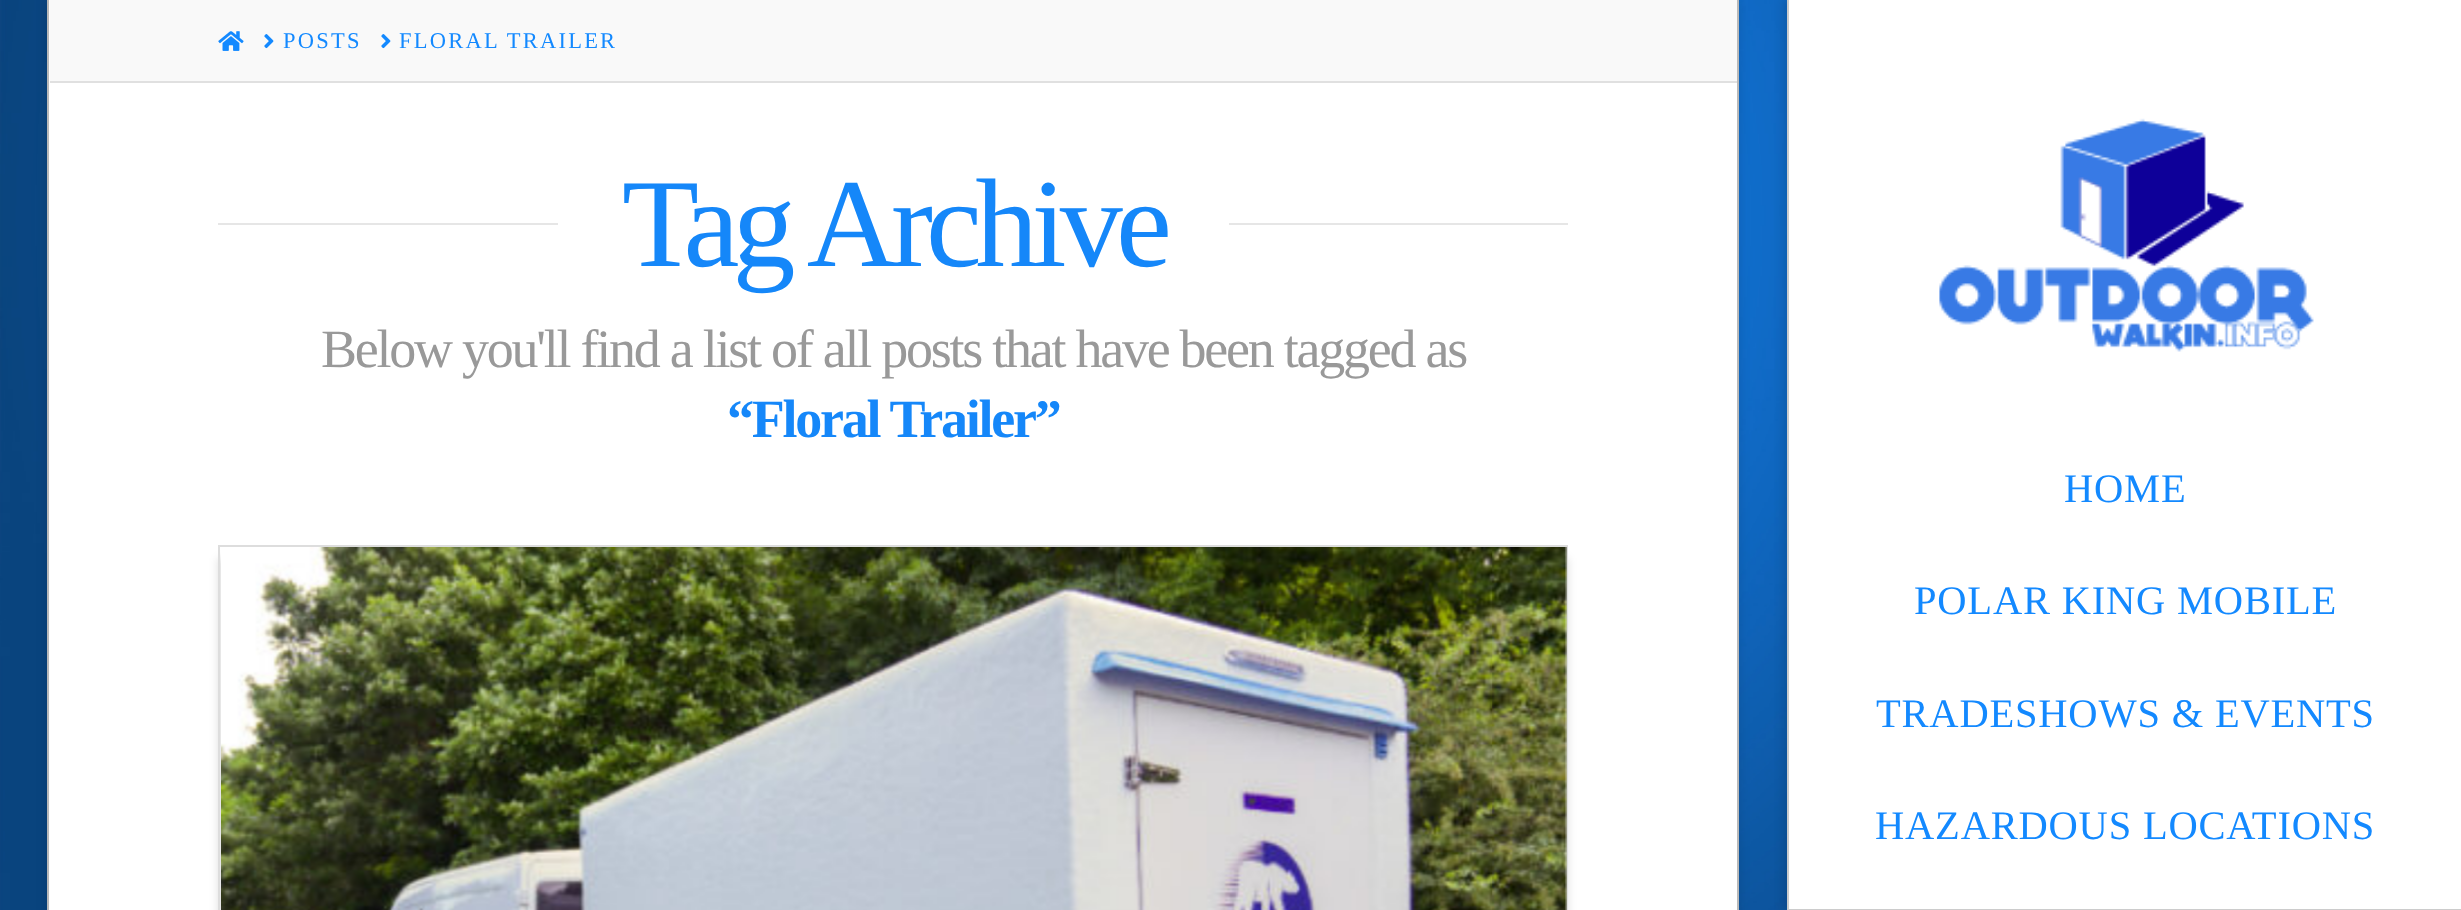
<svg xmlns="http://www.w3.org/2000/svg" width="2461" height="910">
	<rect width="100%" height="100%" fill="#FFFFFF" />
	<image x="0" y="0" width="1787" height="910" href="assets/img1.png" />
	<rect x="47" y="0" width="1692" height="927" fill="#000000" fill-opacity="0.12" filter="blur(5.5px)" />
	<rect x="49" y="0" width="1688" height="910" fill="#FFFFFF" />
	<rect x="1737" y="0" width="2" height="910" fill="#B9B9B9" />
	<rect x="47" y="0" width="2" height="910" fill="#B9B9B9" />
	<rect x="50" y="0" width="1687" height="81" fill="#F9F9F9" />
	<rect x="50" y="81" width="1687" height="2" fill="#E0E0E0" />
	<image x="218" y="31" width="26" height="20" href="assets/img2.png" />
	<image x="264" y="34" width="10" height="15" href="assets/img3.png" />
	<text x="283" y="48" font-family="Liberation Serif" font-size="22.5" letter-spacing="2.25" fill="#1389FF">POSTS</text>
	<image x="381" y="34" width="10" height="15" href="assets/img3.png" />
	<text x="399" y="48" font-family="Liberation Serif" font-size="22.5" letter-spacing="2.25" fill="#1389FF">FLORAL TRAILER</text>
	<rect x="1782" y="0" width="675" height="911" fill="#000000" fill-opacity="0.1" filter="blur(4.5px)" />
	<rect x="1789" y="0" width="672" height="909" fill="#FFFFFF" />
	<rect x="1787" y="909" width="674" height="1" fill="#CCCCCC" />
	<rect x="1787" y="0" width="2" height="910" fill="#CCCCCC" />
	<image x="1939" y="118" width="375" height="234" href="assets/img4.png" />
	<g font-family="Liberation Serif" font-size="40.5" letter-spacing="0.8" fill="#1389FF">
		<text x="2064" y="502">HOME</text>
		<text x="1914" y="614">POLAR KING MOBILE</text>
		<text x="1876" y="727">TRADESHOWS &amp; EVENTS</text>
		<text x="1875" y="839">HAZARDOUS LOCATIONS</text>
	</g>
	<rect x="218" y="223" width="340" height="2" fill="#E6E6E6" />
	<text x="622" y="266" font-family="Liberation Serif" font-size="126" letter-spacing="-6.75" fill="#1587F9">Tag Archive</text>
	<rect x="1229" y="223" width="339" height="2" fill="#E6E6E6" />
	<text x="321" y="367" font-family="Liberation Serif" font-size="54" letter-spacing="-2.25" fill="#999999">Below you'll find a list of all posts that have been tagged as</text>
	<text x="727" y="437" font-family="Liberation Serif" font-size="54" font-weight="700" letter-spacing="-2.25" fill="#1587F9">“Floral Trailer”</text>
	<rect x="218" y="558" width="1332" height="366" fill="#000000" fill-opacity="0.13" filter="blur(4.5px)" />
	<rect x="236" y="558" width="1332" height="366" fill="#000000" fill-opacity="0.13" filter="blur(4.5px)" />
	<rect x="219" y="546" width="1348" height="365" fill="none" stroke="#DDDDDD" stroke-width="2" />
	<image x="221" y="547" width="1346" height="363" href="assets/img5.png" />
</svg>
